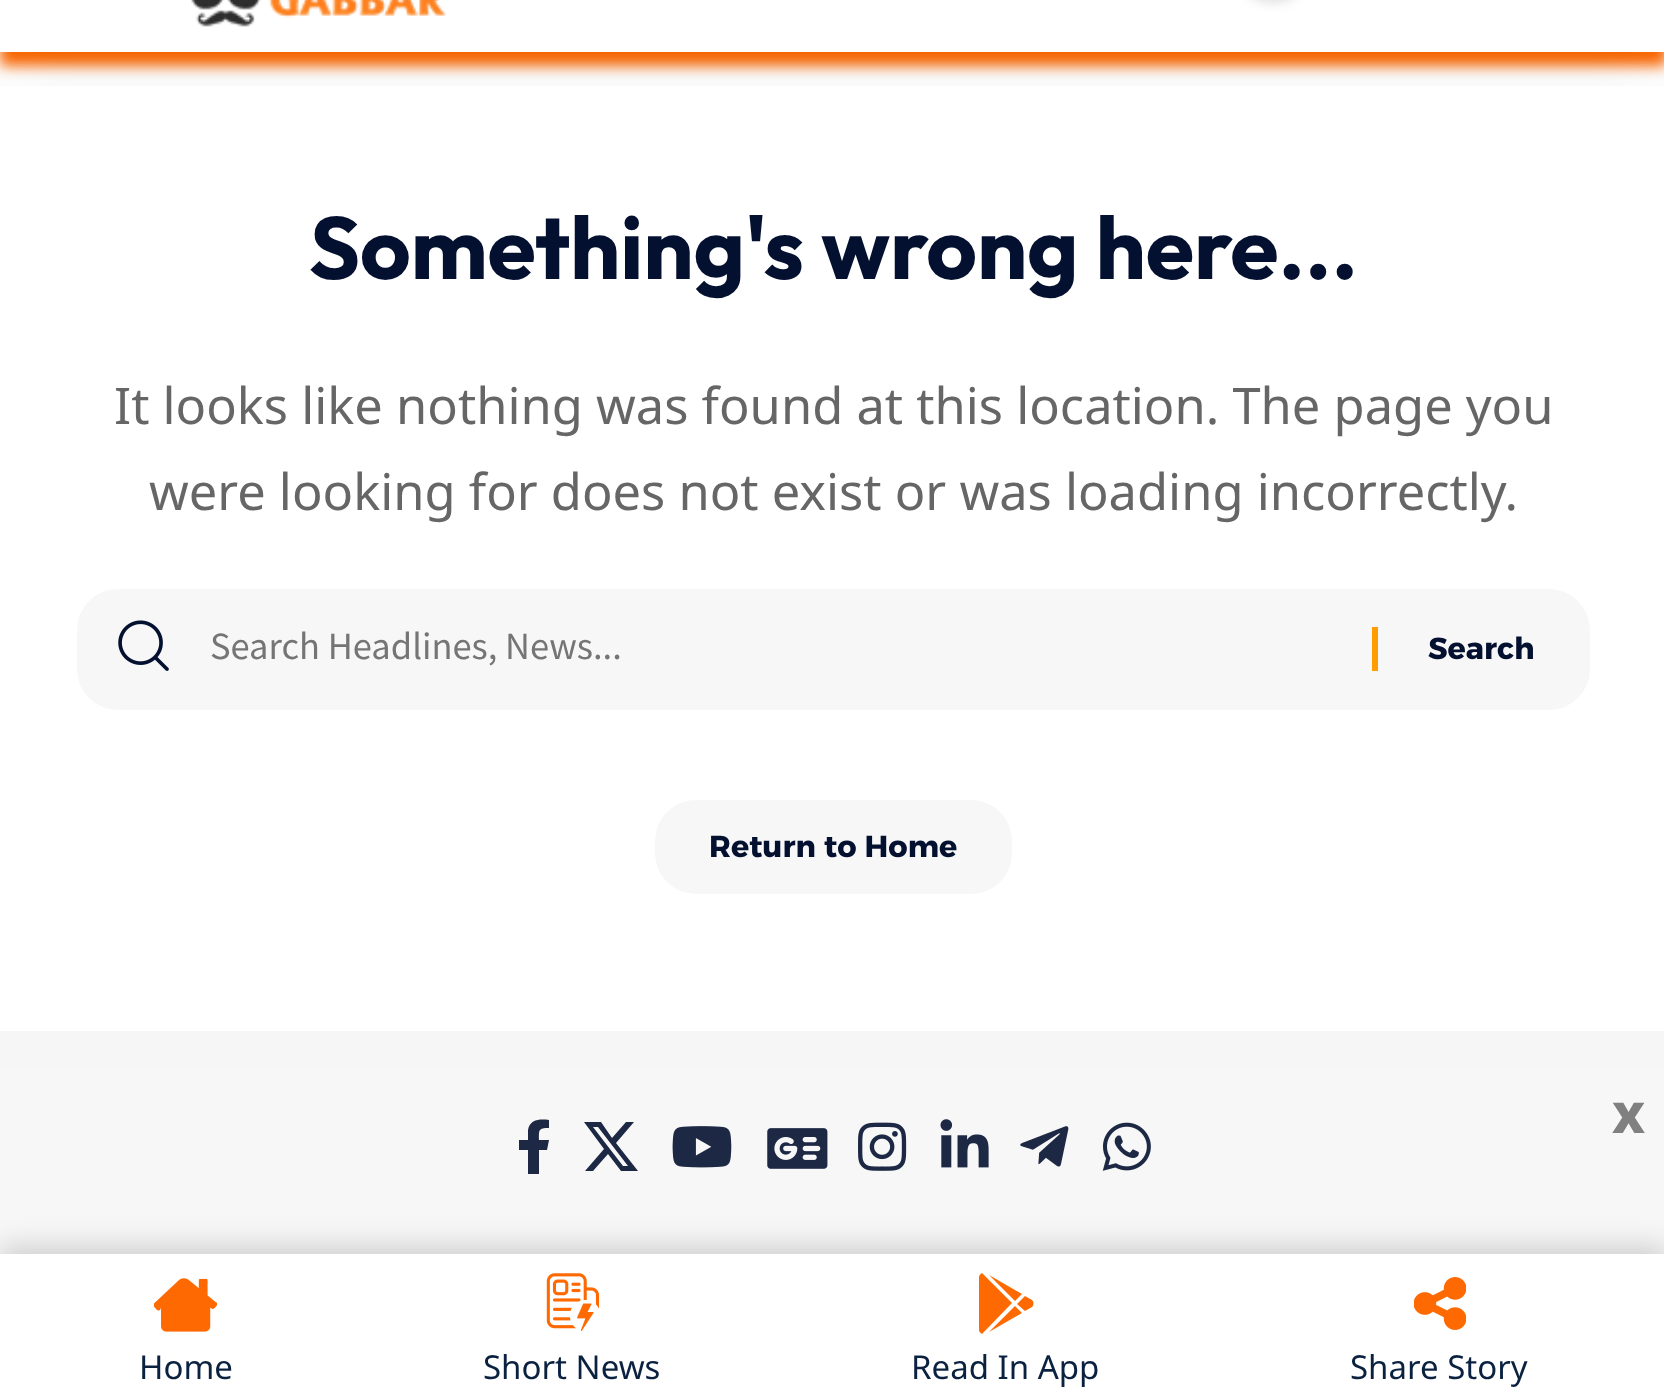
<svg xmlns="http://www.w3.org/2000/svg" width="1664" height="1399">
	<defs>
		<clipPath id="clip1"><rect x="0" y="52" width="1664" height="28" /></clipPath>
		<clipPath id="clip2"><rect x="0" y="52" width="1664" height="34" /></clipPath>
	</defs>
	<rect width="100%" height="100%" fill="#FFFFFF" />
	<g clip-path="url(#clip1)">
		<rect x="0" y="-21" width="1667" height="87" fill="#FF6901" filter="blur(7px)" />
	</g>
	<g clip-path="url(#clip2)">
		<rect x="0" y="-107" width="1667" height="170" fill="#000000" fill-opacity="0.07" filter="blur(41px)" />
	</g>
	<image x="191" y="0" width="255" height="27" href="assets/img1.png" />
	<rect x="1240" y="-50" width="66" height="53" rx="33" fill="#000000" fill-opacity="0.12" filter="blur(5.5px)" />
	<text x="309" y="279" font-family="Outfit" font-size="88" font-weight="700" fill="#04102F">Something's wrong here...</text>
	<g font-family="Noto Sans" font-size="50.6" fill="#666666">
		<text x="114" y="424">It looks like nothing was found at this location. The page you</text>
		<text x="149" y="510">were looking for does not exist or was loading incorrectly.</text>
	</g>
	<rect x="77" y="589" width="1513" height="121" rx="41" fill="#F7F7F7" />
	<image x="118" y="620" width="51" height="51" href="assets/img2.png" />
	<text x="210" y="659" font-family="Source Sans Pro" font-size="38.5" fill="#757575">Search Headlines, News...</text>
	<rect x="1372" y="627" width="6" height="44" fill="#FF9C00" />
	<text x="1428" y="659" font-family="Alexandria" font-size="30.25" font-weight="700" fill="#04102F">Search</text>
	<rect x="655" y="800" width="357" height="94" rx="41" fill="#F7F7F7" />
	<text x="709" y="857" font-family="Alexandria" font-size="30.25" font-weight="700" fill="#04102F">Return to Home</text>
	<rect x="0" y="1031" width="1664" height="36" fill="#F6F6F6" />
	<rect x="0" y="1067" width="1664" height="187" fill="#F7F7F7" />
	<path d="M547 1150L549 1140H539C539 1130 538 1128 549 1128V1120C540 1119 530 1119 528 1130V1140H519V1150H528V1174H539V1150Z" fill="#1D2844" />
	<path d="M626 1122H634L616 1143L638 1171H621L608 1154L593 1171H585L604 1149L584 1122H601L612 1138ZM623 1166H628L598 1127H593Z" fill="#1D2844" />
	<image x="672" y="1126" width="60" height="42" href="assets/img3.png" />
	<image x="767" y="1128" width="61" height="41" href="assets/img4.png" />
	<image x="858" y="1122" width="49" height="49" href="assets/img5.png" />
	<image x="940" y="1119" width="49" height="49" href="assets/img6.png" />
	<image x="1020" y="1126" width="49" height="41" href="assets/img7.png" />
	<image x="1102" y="1122" width="49" height="49" href="assets/img8.png" />
	<text x="1612" y="1133" font-family="Noto Sans" font-size="55" font-weight="800" fill="#808080">x</text>
	<rect x="0" y="1246" width="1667" height="146" fill="#000000" fill-opacity="0.16" filter="blur(14px)" />
	<rect x="0" y="1254" width="1664" height="145" fill="#FFFFFF" />
	<image x="154" y="1278" width="63" height="54" href="assets/img9.png" />
	<text x="139" y="1379" font-family="Noto Sans" font-size="33" fill="#0A2140">Home</text>
	<image x="546" y="1273" width="54" height="58" href="assets/img10.png" />
	<text x="483" y="1379" font-family="Noto Sans" font-size="33" fill="#0A2140">Short News</text>
	<path d="M1015 1301L989 1275L1022 1294ZM982 1273C980 1274 979 1276 979 1277V1330C979 1331 980 1333 982 1334L1012 1303ZM1032 1300L1025 1296L1017 1304L1025 1311L1032 1307C1034 1305 1034 1302 1032 1300ZM989 1332L1022 1313L1015 1306Z" fill="#FF6901" />
	<text x="911" y="1379" font-family="Noto Sans" font-size="33" fill="#0A2140">Read In App</text>
	<image x="1414" y="1277" width="52" height="53" href="assets/img11.png" />
	<text x="1350" y="1379" font-family="Noto Sans" font-size="33" fill="#0A2140">Share Story</text>
</svg>
